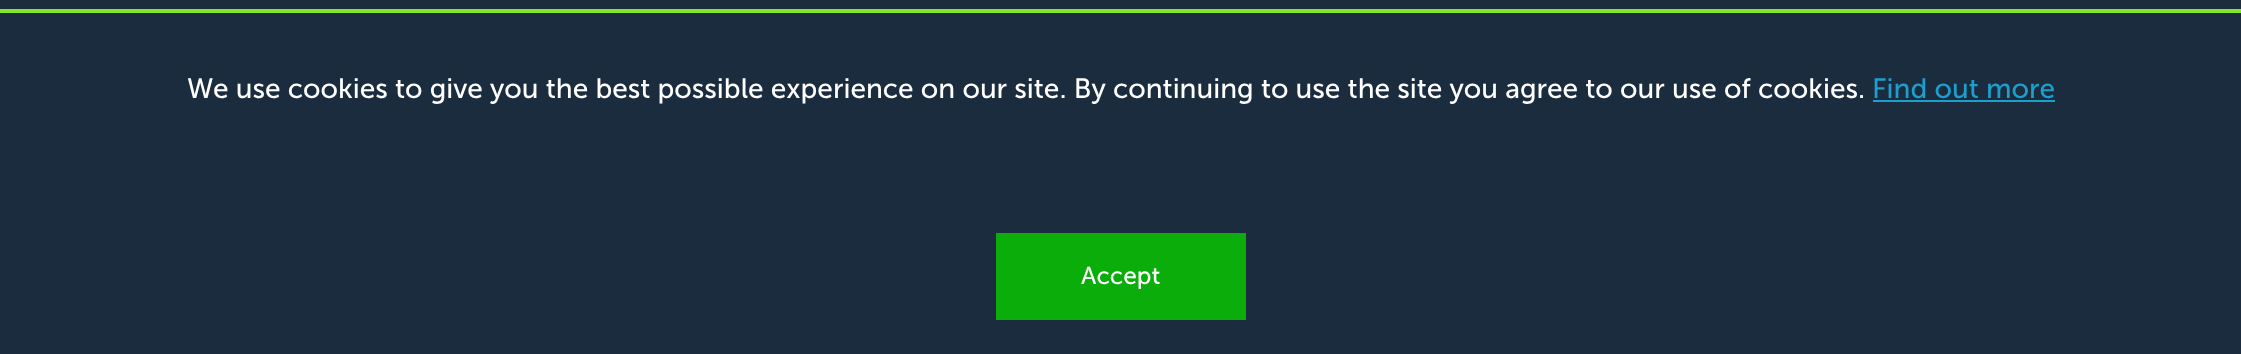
<svg xmlns="http://www.w3.org/2000/svg" width="2241" height="354">
	<rect width="100%" height="100%" fill="#1B2C3F" />
	<rect x="0" y="9" width="2241" height="4" fill="#85E529" />
	<text x="187" y="98" font-family="'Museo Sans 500'" font-size="28" fill="#FFFFFF">We use cookies to give you the best possible experience on our site. By continuing to use the site you agree to our use of cookies.</text>
	<text x="1872" y="98" font-family="'Museo Sans 500'" font-size="28" fill="#1D9ECD">Find out more</text>
	<rect x="1873" y="100" width="182" height="2" fill="#1D9ECD" />
	<rect x="996" y="233" width="250" height="87" fill="#0BAD0B" />
	<text x="1081" y="284" font-family="'Museo Sans 500'" font-size="24.5" fill="#FFFFFF">Accept</text>
</svg>
